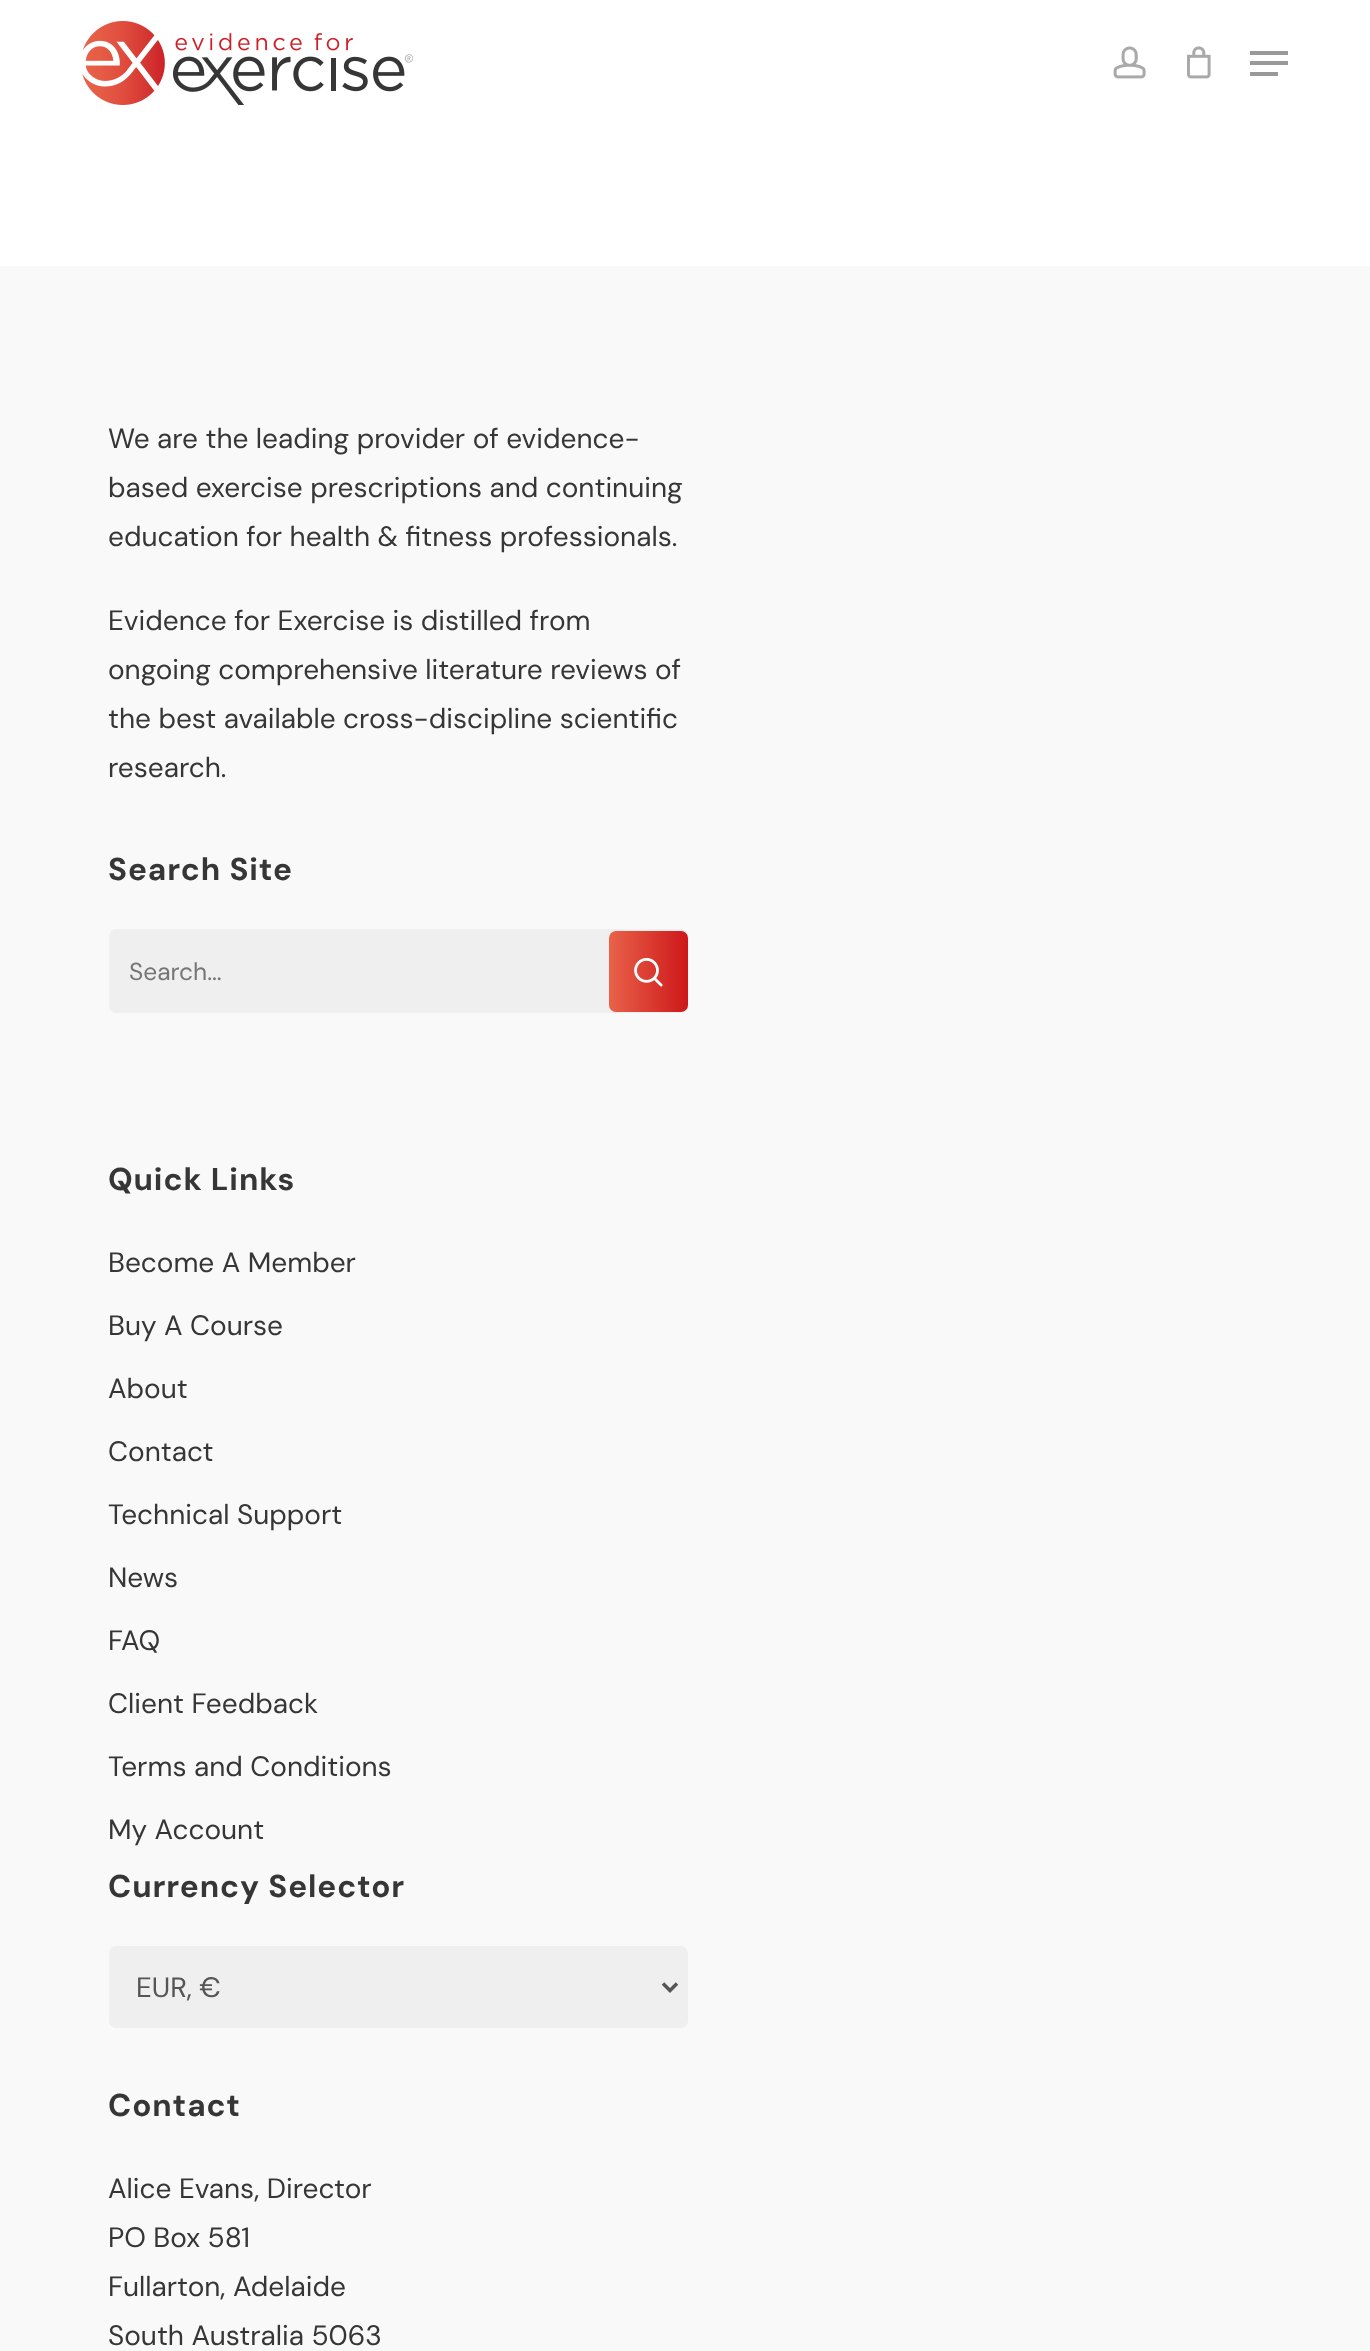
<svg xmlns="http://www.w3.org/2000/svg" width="1370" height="2351">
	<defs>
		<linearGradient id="g1" gradientUnits="userSpaceOnUse" x1="609" y1="971" x2="688" y2="971"><stop offset="0" stop-color="#E96249" /><stop offset="1" stop-color="#CD1719" /></linearGradient>
	</defs>
	<rect width="100%" height="100%" fill="#FFFFFF" />
	<image x="82" y="21" width="331" height="84" href="assets/img1.png" />
	<image x="1113" y="46" width="33" height="33" href="assets/img2.png" />
	<image x="1187" y="46" width="24" height="33" href="assets/img3.png" />
	<rect x="1250" y="51" width="38" height="4" fill="#999999" />
	<rect x="1250" y="72" width="28" height="4" fill="#999999" />
	<rect x="1250" y="61" width="38" height="4" fill="#999999" />
	<rect x="0" y="266" width="1370" height="2085" fill="#F9F9F9" />
	<g font-family="DM Sans" font-size="28" fill="#373636">
		<text x="108" y="448">We are the leading provider of evidence-</text>
		<text x="108" y="497">based exercise prescriptions and continuing</text>
		<text x="108" y="546">education for health &amp; fitness professionals.</text>
		<text x="108" y="630">Evidence for Exercise is distilled from</text>
		<text x="108" y="679">ongoing comprehensive literature reviews of</text>
		<text x="108" y="728">the best available cross-discipline scientific</text>
		<text x="108" y="777">research.</text>
	</g>
	<text x="108" y="880" font-family="DM Sans" font-size="31.5" font-weight="700" letter-spacing="0.9" fill="#373636">Search Site</text>
	<rect x="109" y="929" width="579" height="84" rx="7" fill="#EFEFEF" />
	<text x="129" y="980" font-family="DM Sans" font-size="24.5" fill="#757575">Search...</text>
	<rect x="609" y="931" width="79" height="81" rx="7" fill="url(#g1)" />
	<image x="634" y="957" width="29" height="30" href="assets/img4.png" />
	<text x="108" y="1190" font-family="DM Sans" font-size="31.5" font-weight="700" letter-spacing="0.9" fill="#373636">Quick Links</text>
	<g font-family="DM Sans" font-size="28" fill="#373636">
		<text x="108" y="1272">Become A Member</text>
		<text x="108" y="1335">Buy A Course</text>
		<text x="108" y="1398">About</text>
		<text x="108" y="1461">Contact</text>
		<text x="108" y="1524">Technical Support</text>
		<text x="108" y="1587">News</text>
		<text x="108" y="1650">FAQ</text>
		<text x="108" y="1713">Client Feedback</text>
		<text x="108" y="1776">Terms and Conditions</text>
		<text x="108" y="1839">My Account</text>
	</g>
	<text x="108" y="1897" font-family="DM Sans" font-size="31.5" font-weight="700" letter-spacing="0.9" fill="#373636">Currency Selector</text>
	<rect x="109" y="1946" width="579" height="82" rx="7" fill="#EFEFEF" />
	<path d="M663 1983.5L670 1990.5L677 1983.5" fill="none" stroke="#555555" stroke-width="3.5" />
	<text x="136" y="1997" font-family="DM Sans" font-size="28" fill="#555555">EUR, €</text>
	<text x="108" y="2116" font-family="DM Sans" font-size="31.5" font-weight="700" letter-spacing="0.9" fill="#373636">Contact</text>
	<g font-family="DM Sans" font-size="28" fill="#373636">
		<text x="108" y="2198">Alice Evans, Director</text>
		<text x="108" y="2247">PO Box 581</text>
		<text x="108" y="2296">Fullarton, Adelaide</text>
		<text x="108" y="2345">South Australia 5063</text>
	</g>
</svg>
